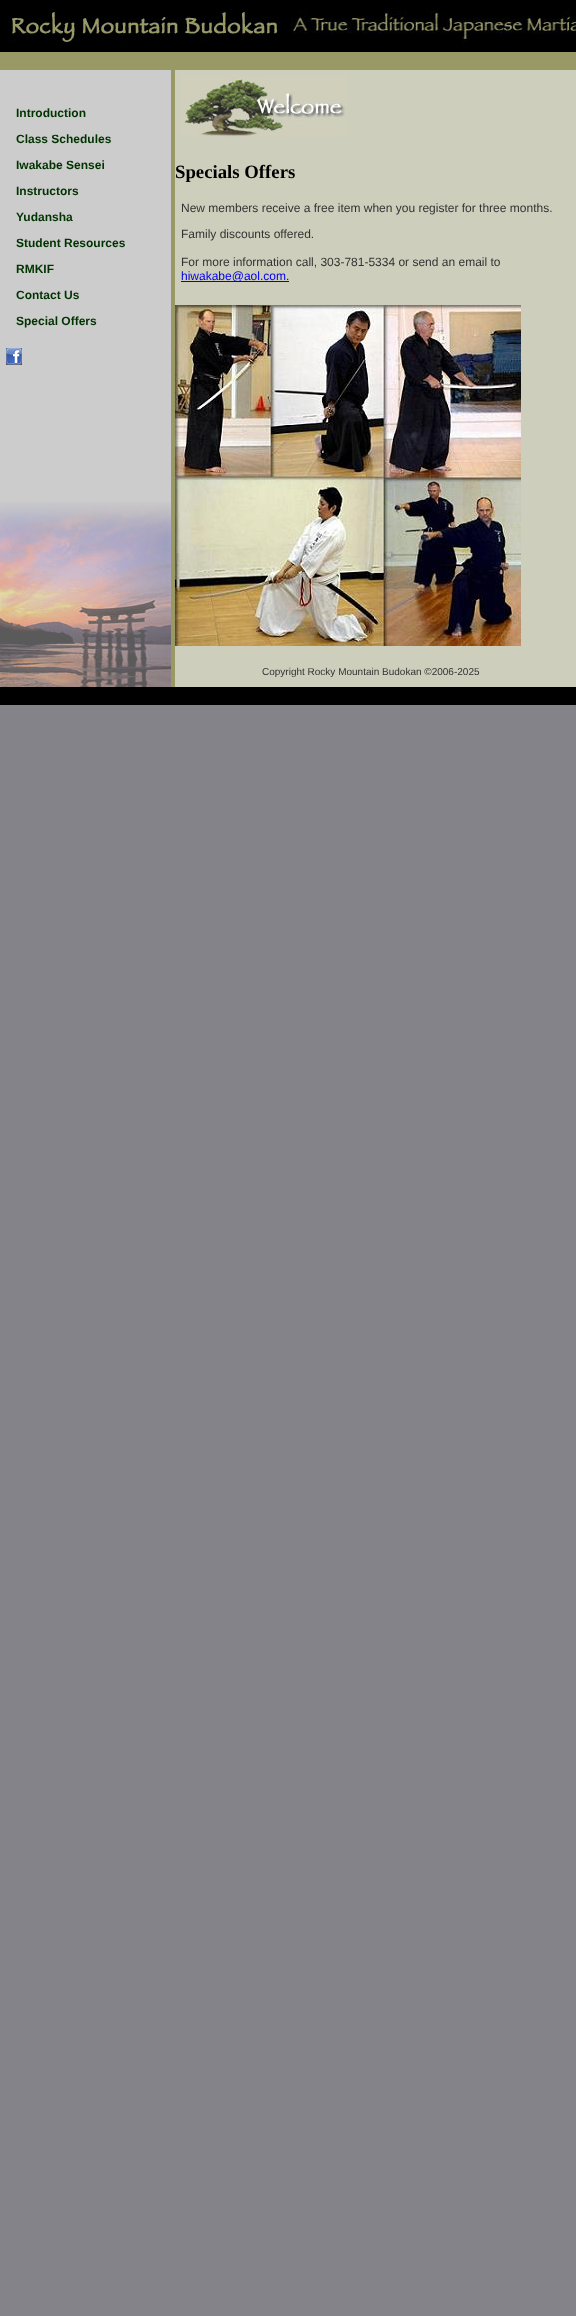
<svg xmlns="http://www.w3.org/2000/svg" width="576" height="2316">
	<rect width="100%" height="100%" fill="#848389" />
	<rect x="0" y="0" width="576" height="52" fill="#000000" />
	<image x="8" y="9" width="272" height="35" href="assets/img1.png" />
	<image x="291" y="10" width="285" height="32" href="assets/img2.png" />
	<rect x="0" y="52" width="576" height="18" fill="#999966" />
	<rect x="0" y="70" width="171" height="432" fill="#CCCCCC" />
	<g font-family="Liberation Sans" font-size="12" font-weight="700" fill="#003300">
		<text x="16" y="117">Introduction</text>
		<text x="16" y="143">Class Schedules</text>
		<text x="16" y="169">Iwakabe Sensei</text>
		<text x="16" y="195">Instructors</text>
		<text x="16" y="221">Yudansha</text>
		<text x="16" y="247">Student Resources</text>
		<text x="16" y="273">RMKIF</text>
		<text x="16" y="299">Contact Us</text>
		<text x="16" y="325">Special Offers</text>
	</g>
	<image x="6" y="348" width="16" height="17" href="assets/img3.png" />
	<rect x="171" y="70" width="4" height="617" fill="#999966" />
	<rect x="175" y="70" width="391" height="617" fill="#CECEBC" />
	<image x="180" y="75" width="168" height="62" href="assets/img4.png" />
	<text x="175" y="178" font-family="Liberation Serif" font-size="18.75" font-weight="700" fill="#000000">Specials Offers</text>
	<g font-family="Liberation Sans" font-size="12" fill="#333333">
		<text x="181" y="212">New members receive a free item when you register for three months.</text>
		<text x="181" y="238">Family discounts offered.</text>
		<text x="181" y="266">For more information call, 303-781-5334 or send an email to</text>
	</g>
	<rect x="181" y="281" width="108" height="1" fill="#0000EE" />
	<text x="181" y="280" font-family="Liberation Sans" font-size="12" fill="#0000EE">hiwakabe@aol.com.</text>
	<image x="175" y="305" width="346" height="341" href="assets/img5.png" />
	<text x="262" y="675" font-family="Liberation Sans" font-size="10" fill="#333333">Copyright Rocky Mountain Budokan ©2006-2025</text>
	<rect x="566" y="70" width="10" height="617" fill="#CECEBC" />
	<image x="0" y="502" width="171" height="185" href="assets/img6.png" />
	<rect x="0" y="687" width="576" height="18" fill="#000000" />
</svg>
